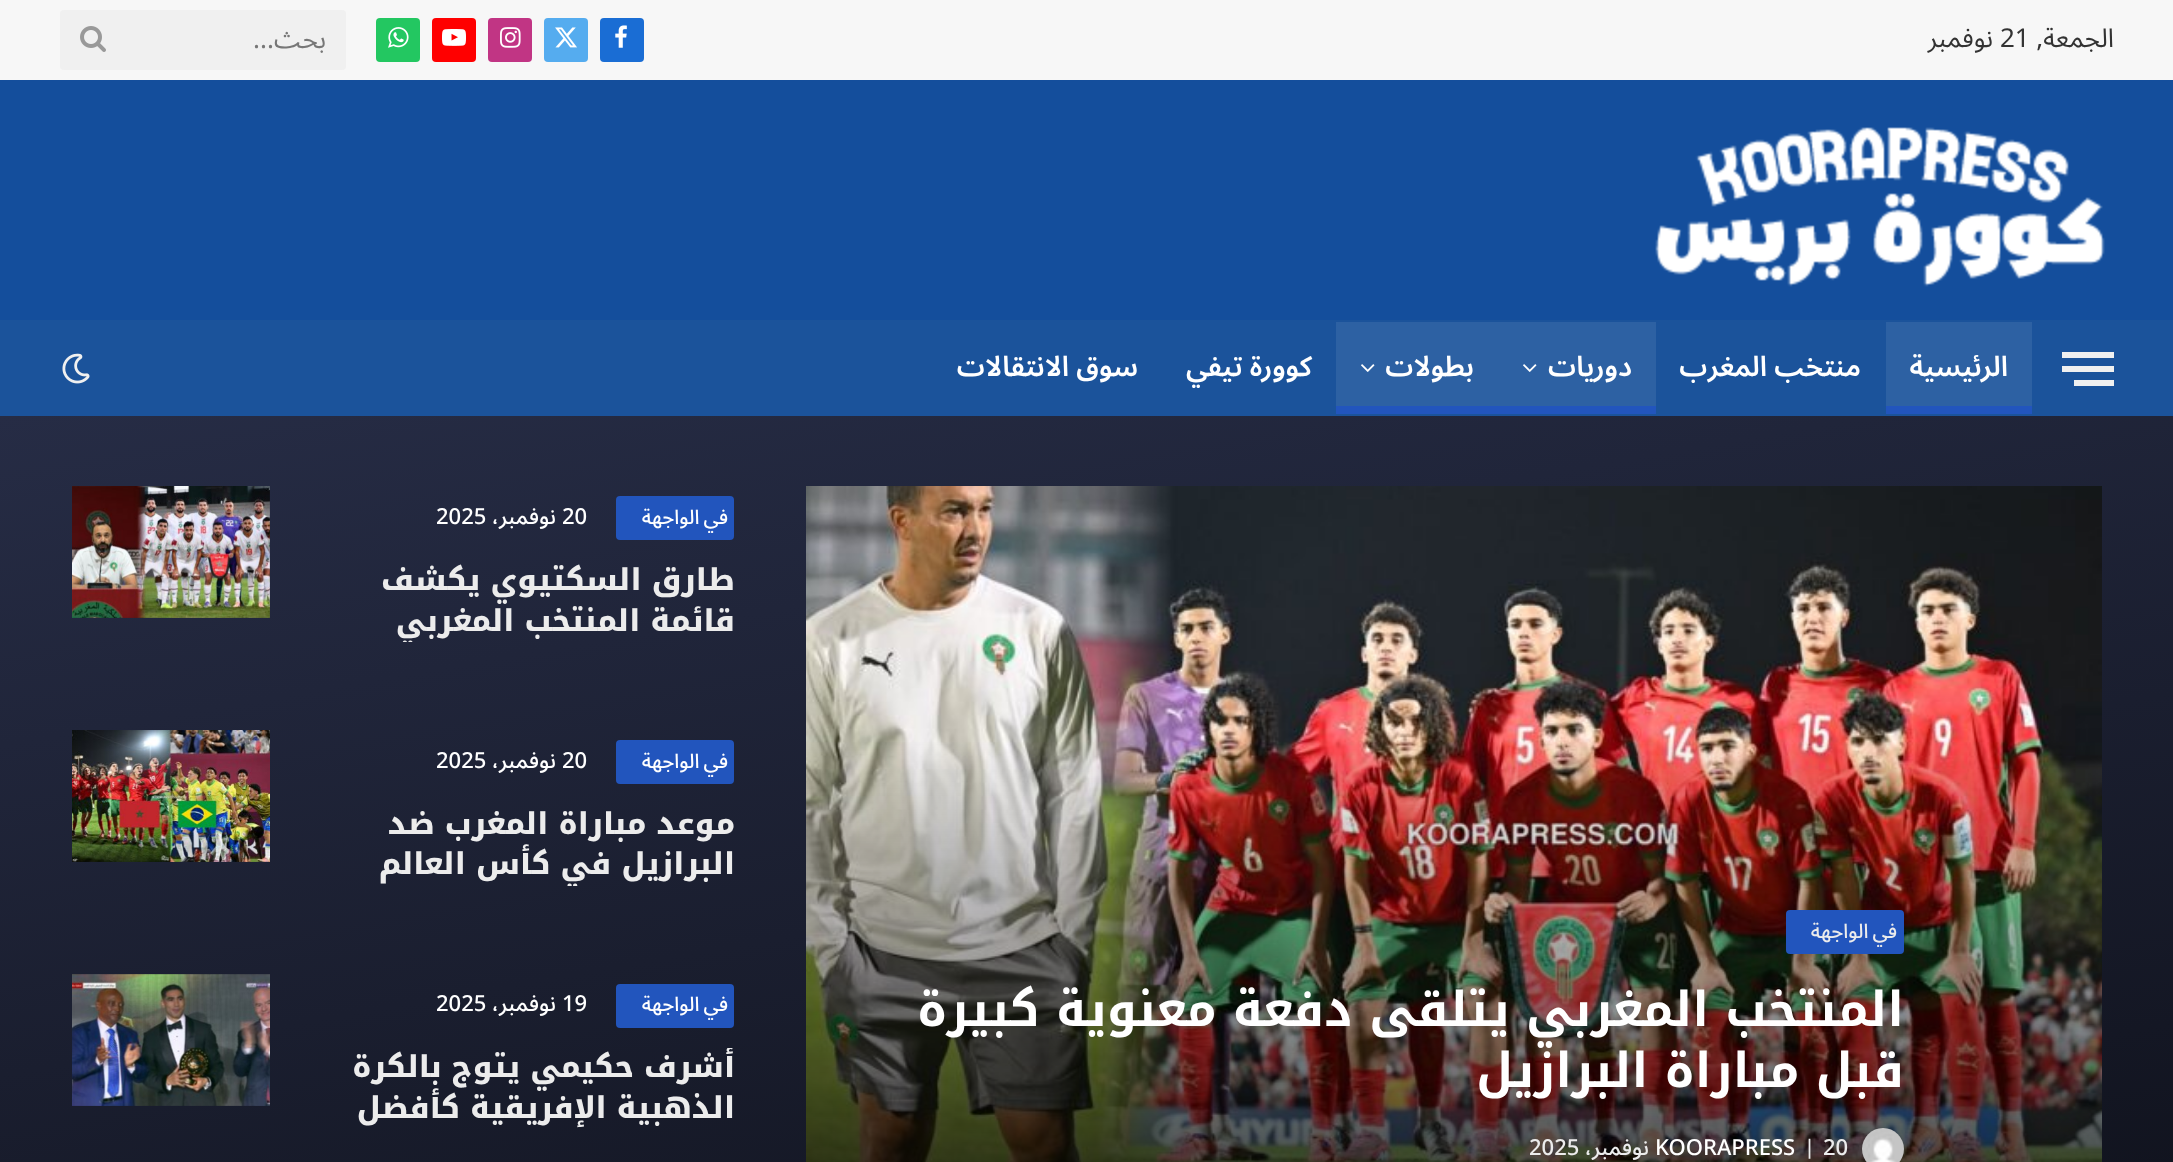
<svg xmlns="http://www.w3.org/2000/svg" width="2173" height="1162">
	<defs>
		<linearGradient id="g1" gradientUnits="userSpaceOnUse" x1="918" y1="254" x2="1256" y2="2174"><stop offset="0" stop-color="#262C45" /><stop offset="1" stop-color="#020203" /></linearGradient>
		<clipPath id="clip1"><rect x="330" y="560" width="404" height="82" /></clipPath>
		<clipPath id="clip2"><rect x="330" y="804" width="404" height="82" /></clipPath>
		<clipPath id="clip3"><rect x="330" y="1048" width="404" height="80" /></clipPath>
	</defs>
	<rect width="100%" height="100%" fill="#F7F7F7" />
	<text x="2114" y="47" font-family="Noto Sans Arabic" font-size="26" direction="rtl" fill="#333333">الجمعة,</text>
	<text x="2000" y="47" font-family="Noto Sans Arabic" font-size="26" fill="#333333">21</text>
	<text x="1993" y="47" font-family="Noto Sans Arabic" font-size="26" direction="rtl" fill="#333333">نوفمبر</text>
	<rect x="600" y="18" width="44" height="44" rx="4" fill="#1A6DD4" />
	<image x="615" y="25" width="12" height="23" href="assets/img1.png" />
	<rect x="544" y="18" width="44" height="44" rx="4" fill="#55ACEF" />
	<image x="555" y="27" width="22" height="21" href="assets/img2.png" />
	<rect x="488" y="18" width="44" height="44" rx="4" fill="#C13584" />
	<image x="500" y="27" width="21" height="21" href="assets/img3.png" />
	<rect x="432" y="18" width="44" height="44" rx="4" fill="#FF0000" />
	<image x="442" y="29" width="24" height="17" href="assets/img4.png" />
	<rect x="376" y="18" width="44" height="44" rx="4" fill="#23C761" />
	<image x="388" y="27" width="21" height="21" href="assets/img5.png" />
	<rect x="60" y="10" width="286" height="60" rx="4" fill="#F0F0F0" />
	<text x="326" y="48" font-family="Noto Sans Arabic" font-size="26" direction="rtl" fill="#777777">بحث...</text>
	<image x="80" y="26" width="26" height="26" href="assets/img6.png" />
	<rect x="0" y="80" width="2173" height="240" fill="#144E9C" />
	<image x="1655" y="127" width="450" height="160" href="assets/img7.png" />
	<rect x="0" y="320" width="2173" height="96" fill="#1B539B" />
	<rect x="2074" y="380" width="40" height="6" fill="#F0F0F0" />
	<rect x="2062" y="352" width="52" height="6" fill="#F0F0F0" />
	<rect x="2062" y="366" width="52" height="6" fill="#F0F0F0" />
	<rect x="1886" y="322" width="146" height="84" fill="#2D61A3" />
	<text x="2008" y="376" font-family="Noto Sans Arabic" font-size="28" font-weight="600" direction="rtl" fill="#FFFFFF">الرئيسية</text>
	<rect x="1886" y="406" width="146" height="8" fill="#2255BD" />
	<text x="1861" y="376" font-family="Noto Sans Arabic" font-size="28" font-weight="600" direction="rtl" fill="#FFFFFF">منتخب المغرب</text>
	<rect x="1336" y="322" width="320" height="84" fill="#2D61A3" />
	<text x="1632" y="376" font-family="Noto Sans Arabic" font-size="28" font-weight="600" direction="rtl" fill="#FFFFFF">دوريات</text>
	<image x="1523" y="364" width="14" height="8" href="assets/img8.png" />
	<rect x="1336" y="406" width="320" height="8" fill="#2255BD" />
	<text x="1474" y="376" font-family="Noto Sans Arabic" font-size="28" font-weight="600" direction="rtl" fill="#FFFFFF">بطولات</text>
	<image x="1361" y="364" width="14" height="8" href="assets/img8.png" />
	<g font-family="Noto Sans Arabic" font-size="28" font-weight="600" direction="rtl" fill="#FFFFFF">
		<text x="1312" y="376">كوورة تيفي</text>
		<text x="1138" y="376">سوق الانتقالات</text>
	</g>
	<image x="62" y="353" width="28" height="31" href="assets/img9.png" />
	<rect x="0" y="416" width="2173" height="746" fill="url(#g1)" />
	<image x="806" y="486" width="1296" height="676" href="assets/img10.png" />
	<rect x="1786" y="910" width="118" height="44" rx="4" fill="#2255BD" />
	<text x="1897" y="938" word-spacing="-1" font-family="Noto Sans Arabic" font-size="20" font-weight="500" letter-spacing="1" direction="rtl" fill="#ECECEC">في الواجهة</text>
	<g font-family="Noto Kufi Arabic" font-size="48" font-weight="700" direction="rtl" fill="#FFFFFF">
		<text x="1904" y="1026">المنتخب المغربي يتلقى دفعة معنوية كبيرة</text>
		<text x="1904" y="1087">قبل مباراة البرازيل</text>
	</g>
	<text x="1823" y="1155" font-family="Noto Sans Arabic" font-size="22" font-weight="500" fill="#ECECEC">20</text>
	<text x="1804" y="1154" font-family="Noto Sans Arabic" font-size="20" font-weight="500" fill="#ECECEC">|</text>
	<text x="1649" y="1155" font-family="Noto Sans Arabic" font-size="22" font-weight="500" direction="rtl" fill="#ECECEC">نوفمبر،</text>
	<text x="1529" y="1155" font-family="Noto Sans Arabic" font-size="22" font-weight="500" fill="#ECECEC">2025</text>
	<rect x="1862" y="1128" width="42" height="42" rx="21" fill="#000000" fill-opacity="0.2" filter="blur(1px)" />
	<image x="1862" y="1128" width="42" height="34" href="assets/img11.png" />
	<text x="1655" y="1155" font-family="Noto Sans Arabic" font-size="22" font-weight="500" fill="#FFFFFF">KOORAPRESS</text>
	<rect x="616" y="496" width="118" height="44" rx="4" fill="#2255BD" />
	<text x="728" y="524" word-spacing="-1" font-family="Noto Sans Arabic" font-size="20" font-weight="500" letter-spacing="1" direction="rtl" fill="#FFFFFF">في الواجهة</text>
	<text x="562" y="524" font-family="Noto Sans Arabic" font-size="22" font-weight="500" fill="#FFFFFF">20</text>
	<text x="556" y="524" font-family="Noto Sans Arabic" font-size="22" font-weight="500" direction="rtl" fill="#FFFFFF">نوفمبر،</text>
	<text x="436" y="524" font-family="Noto Sans Arabic" font-size="22" font-weight="500" fill="#FFFFFF">2025</text>
	<text x="735" y="590" font-family="Noto Kufi Arabic" font-size="30" font-weight="800" direction="rtl" fill="#ECECEC">طارق السكتيوي يكشف</text>
	<g clip-path="url(#clip1)">
		<text x="735" y="631" font-family="Noto Kufi Arabic" font-size="30" font-weight="800" direction="rtl" fill="#ECECEC">قائمة المنتخب المغربي</text>
	</g>
	<image x="72" y="486" width="198" height="132" href="assets/img12.png" />
	<rect x="616" y="740" width="118" height="44" rx="4" fill="#2255BD" />
	<text x="728" y="768" word-spacing="-1" font-family="Noto Sans Arabic" font-size="20" font-weight="500" letter-spacing="1" direction="rtl" fill="#FFFFFF">في الواجهة</text>
	<text x="562" y="768" font-family="Noto Sans Arabic" font-size="22" font-weight="500" fill="#FFFFFF">20</text>
	<text x="556" y="768" font-family="Noto Sans Arabic" font-size="22" font-weight="500" direction="rtl" fill="#FFFFFF">نوفمبر،</text>
	<text x="436" y="768" font-family="Noto Sans Arabic" font-size="22" font-weight="500" fill="#FFFFFF">2025</text>
	<text x="735" y="834" font-family="Noto Kufi Arabic" font-size="30" font-weight="800" direction="rtl" fill="#ECECEC">موعد مباراة المغرب ضد</text>
	<g clip-path="url(#clip2)">
		<text x="735" y="874" font-family="Noto Kufi Arabic" font-size="30" font-weight="800" direction="rtl" fill="#ECECEC">البرازيل في كأس العالم</text>
	</g>
	<image x="72" y="730" width="198" height="132" href="assets/img13.png" />
	<rect x="616" y="984" width="118" height="44" rx="4" fill="#2255BD" />
	<text x="728" y="1011" word-spacing="-1" font-family="Noto Sans Arabic" font-size="20" font-weight="500" letter-spacing="1" direction="rtl" fill="#FFFFFF">في الواجهة</text>
	<text x="562" y="1011" font-family="Noto Sans Arabic" font-size="22" font-weight="500" fill="#FFFFFF">19</text>
	<text x="556" y="1011" font-family="Noto Sans Arabic" font-size="22" font-weight="500" direction="rtl" fill="#FFFFFF">نوفمبر،</text>
	<text x="436" y="1011" font-family="Noto Sans Arabic" font-size="22" font-weight="500" fill="#FFFFFF">2025</text>
	<g clip-path="url(#clip3)">
		<text x="735" y="1077" font-family="Noto Kufi Arabic" font-size="30" font-weight="800" direction="rtl" fill="#ECECEC">أشرف حكيمي يتوج بالكرة</text>
	</g>
	<text x="735" y="1118" font-family="Noto Kufi Arabic" font-size="30" font-weight="800" direction="rtl" fill="#ECECEC">الذهبية الإفريقية كأفضل</text>
	<image x="72" y="974" width="198" height="132" href="assets/img14.png" />
</svg>
